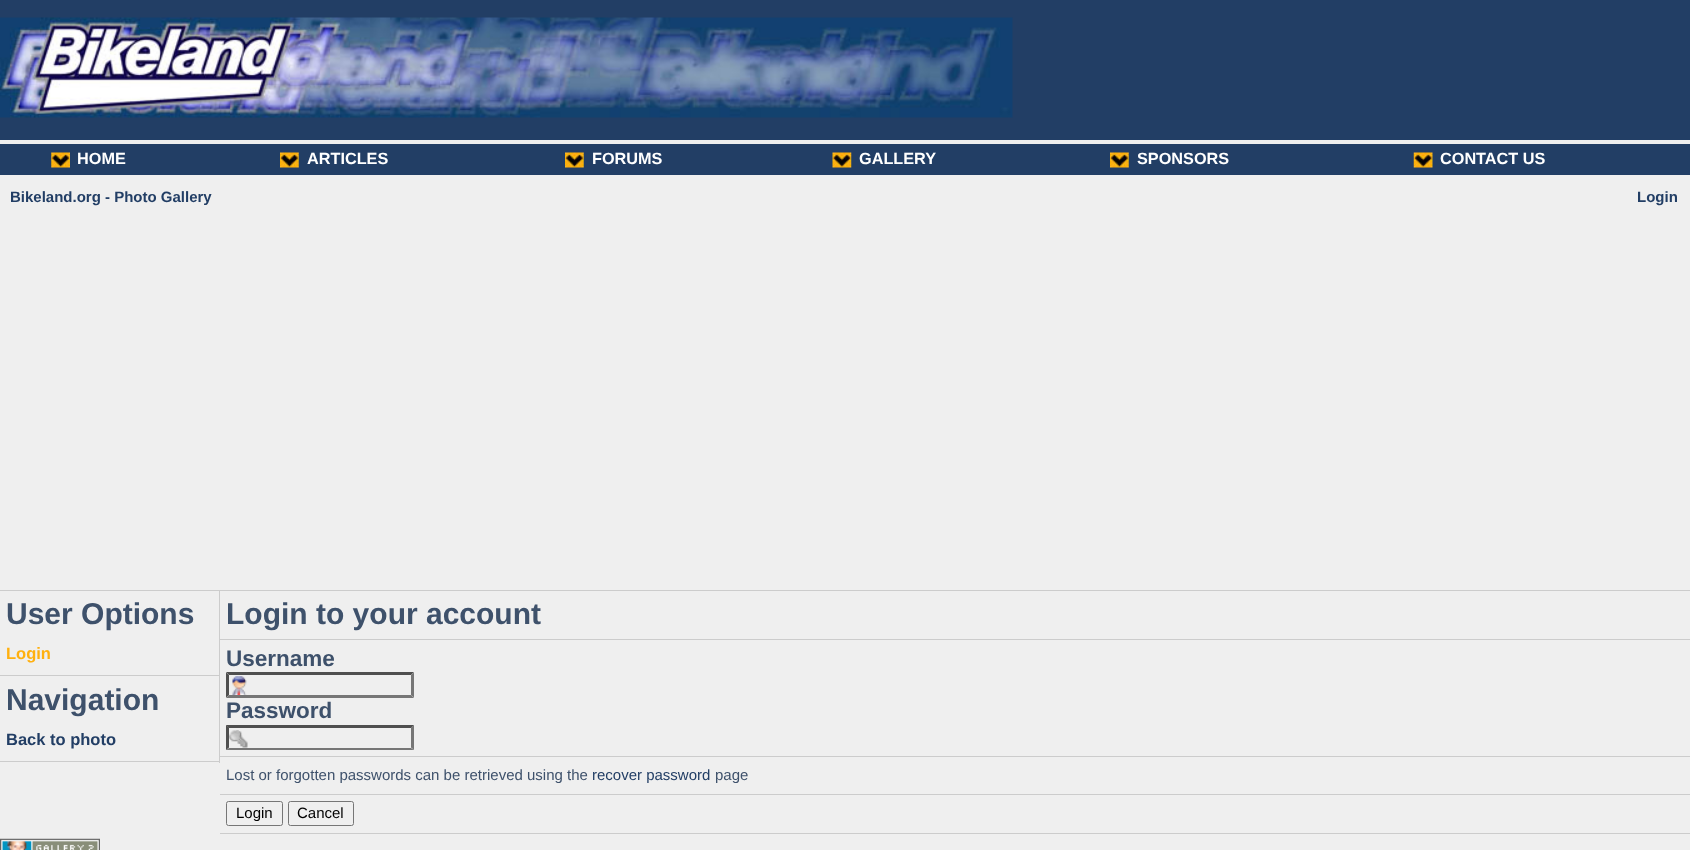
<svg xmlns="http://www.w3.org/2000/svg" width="1690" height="850">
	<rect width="100%" height="100%" fill="#EFEFEF" />
	<rect x="0" y="0" width="1690" height="140" fill="#223E65" />
	<image x="0" y="17" width="1013" height="101" href="assets/img1.png" />
	<rect x="0" y="144" width="1690" height="31" fill="#223E65" />
	<image x="51" y="152" width="19" height="16" href="assets/img2.png" />
	<text x="77" y="164" font-family="Liberation Sans" font-size="16.25" font-weight="700" fill="#FFFFFF">HOME</text>
	<image x="280" y="152" width="19" height="16" href="assets/img3.png" />
	<text x="307" y="164" font-family="Liberation Sans" font-size="16.25" font-weight="700" fill="#FFFFFF">ARTICLES</text>
	<image x="565" y="152" width="19" height="16" href="assets/img3.png" />
	<text x="592" y="164" font-family="Liberation Sans" font-size="16.25" font-weight="700" fill="#FFFFFF">FORUMS</text>
	<image x="832" y="152" width="20" height="16" href="assets/img4.png" />
	<text x="859" y="164" font-family="Liberation Sans" font-size="16.25" font-weight="700" fill="#FFFFFF">GALLERY</text>
	<image x="1110" y="152" width="19" height="16" href="assets/img3.png" />
	<text x="1137" y="164" font-family="Liberation Sans" font-size="16.25" font-weight="700" fill="#FFFFFF">SPONSORS</text>
	<image x="1413" y="152" width="20" height="16" href="assets/img5.png" />
	<text x="1440" y="164" font-family="Liberation Sans" font-size="16.25" font-weight="700" fill="#FFFFFF">CONTACT US</text>
	<rect x="0" y="590" width="1690" height="1" fill="#CCCCCC" />
	<g font-family="Liberation Sans" font-size="15" font-weight="700" fill="#223E65">
		<text x="10" y="202">Bikeland.org - Photo Gallery</text>
		<text x="1637" y="202">Login</text>
	</g>
	<rect x="219" y="591" width="1" height="172" fill="#CCCCCC" />
	<rect x="0" y="675" width="219" height="1" fill="#CCCCCC" />
	<text x="6" y="624" font-family="Liberation Sans" font-size="30" font-weight="700" fill="#3E516B">User Options</text>
	<text x="6" y="659" font-family="Liberation Sans" font-size="16.5" font-weight="700" fill="#FFB00F">Login</text>
	<rect x="0" y="761" width="219" height="1" fill="#CCCCCC" />
	<text x="6" y="710" font-family="Liberation Sans" font-size="30" font-weight="700" fill="#3E516B">Navigation</text>
	<text x="6" y="745" font-family="Liberation Sans" font-size="16.5" font-weight="700" fill="#223E65">Back to photo</text>
	<rect x="220" y="639" width="1470" height="1" fill="#CCCCCC" />
	<text x="226" y="624" font-family="Liberation Sans" font-size="30" font-weight="700" fill="#3E516B">Login to your account</text>
	<rect x="220" y="756" width="1470" height="1" fill="#CCCCCC" />
	<text x="226" y="666" font-family="Liberation Sans" font-size="22.5" font-weight="700" fill="#3E516B">Username</text>
	<image x="232" y="676" width="15" height="19" href="assets/img6.png" />
	<path d="M226 672H414L411 675H229Z" fill="#4F4F4F" />
	<path d="M414 672.5V697.5L411 695V675Z" fill="#767676" />
	<path d="M414 698H226L229 695H411Z" fill="#767676" />
	<path d="M226 697.5V672.5L229 675V695Z" fill="#4F4F4F" />
	<text x="226" y="718" font-family="Liberation Sans" font-size="22.5" font-weight="700" fill="#3E516B">Password</text>
	<image x="229" y="730" width="19" height="18" href="assets/img7.png" />
	<path d="M226 725H414L411 728H229Z" fill="#4F4F4F" />
	<path d="M414 725V750L411 747.5V727.5Z" fill="#767676" />
	<path d="M414 750H226L229 748H411Z" fill="#767676" />
	<path d="M226 750V725L229 727.5V747.5Z" fill="#4F4F4F" />
	<rect x="220" y="794" width="1470" height="1" fill="#CCCCCC" />
	<text x="226" y="780" font-family="Liberation Sans" font-size="15" fill="#3E516B">Lost or forgotten passwords can be retrieved using the</text>
	<text x="592" y="780" font-family="Liberation Sans" font-size="15" fill="#223E65">recover password</text>
	<text x="715" y="780" font-family="Liberation Sans" font-size="15" fill="#3E516B">page</text>
	<rect x="220" y="833" width="1470" height="1" fill="#CCCCCC" />
	<rect x="226.5" y="801.5" width="56" height="24" rx="2" fill="none" stroke="#767676" />
	<text x="236" y="818" font-family="Liberation Sans" font-size="15" fill="#000000">Login</text>
	<rect x="288.5" y="801.5" width="65" height="24" rx="2" fill="none" stroke="#767676" />
	<text x="297" y="818" font-family="Liberation Sans" font-size="15" fill="#000000">Cancel</text>
	<image x="0" y="838" width="100" height="12" href="assets/img8.png" />
</svg>
